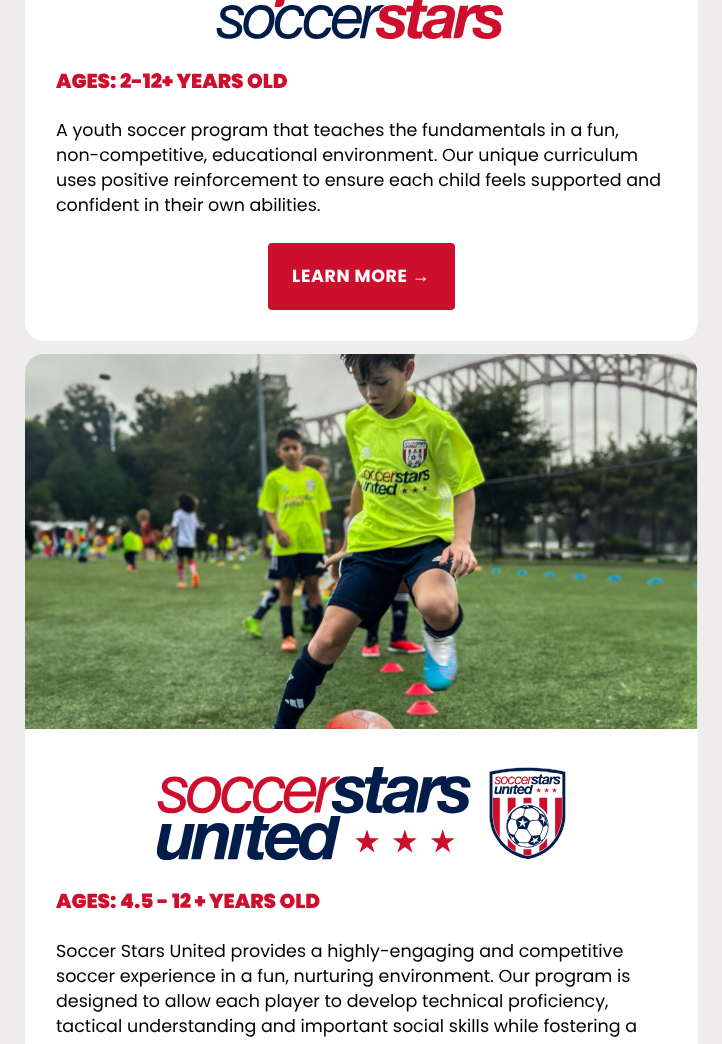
<svg xmlns="http://www.w3.org/2000/svg" width="722" height="1044">
	<rect width="100%" height="100%" fill="#EEECEC" />
	<rect x="25" y="-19" width="673" height="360" rx="19" fill="#FFFFFF" />
	<image x="216" y="0" width="287" height="39" href="assets/img1.png" />
	<text x="56" y="88" font-family="Poppins" font-size="20" font-weight="900" fill="#CE0E2D">AGES: 2-12+ YEARS OLD</text>
	<g font-family="Poppins" font-size="17.5" fill="#000000">
		<text x="56" y="136">A youth soccer program that teaches the fundamentals in a fun,</text>
		<text x="56" y="161">non-competitive, educational environment. Our unique curriculum</text>
		<text x="56" y="186">uses positive reinforcement to ensure each child feels supported and</text>
		<text x="56" y="211">confident in their own abilities.</text>
	</g>
	<rect x="268" y="243" width="187" height="67" rx="4" fill="#CE0E2D" />
	<text x="292" y="282" font-family="Poppins" font-size="17.5" font-weight="700" letter-spacing="0.6" fill="#FFFFFF">LEARN MORE</text>
	<text x="412" y="282" font-family="Liberation Sans" font-size="17.5" font-weight="700" letter-spacing="0.6" fill="#FFFFFF">→</text>
	<rect x="25" y="354" width="673" height="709" rx="19" fill="#FFFFFF" />
	<image x="25" y="354" width="673" height="375" href="assets/img2.png" />
	<image x="156" y="767" width="410" height="93" href="assets/img3.png" />
	<text x="56" y="908" font-family="Poppins" font-size="20" font-weight="900" fill="#CE0E2D">AGES: 4.5 - 12 + YEARS OLD</text>
	<g font-family="Poppins" font-size="17.5" fill="#000000">
		<text x="56" y="957">Soccer Stars United provides a highly-engaging and competitive</text>
		<text x="56" y="982">soccer experience in a fun, nurturing environment. Our program is</text>
		<text x="56" y="1007">designed to allow each player to develop technical proficiency,</text>
		<text x="56" y="1032">tactical understanding and important social skills while fostering a</text>
	</g>
</svg>
